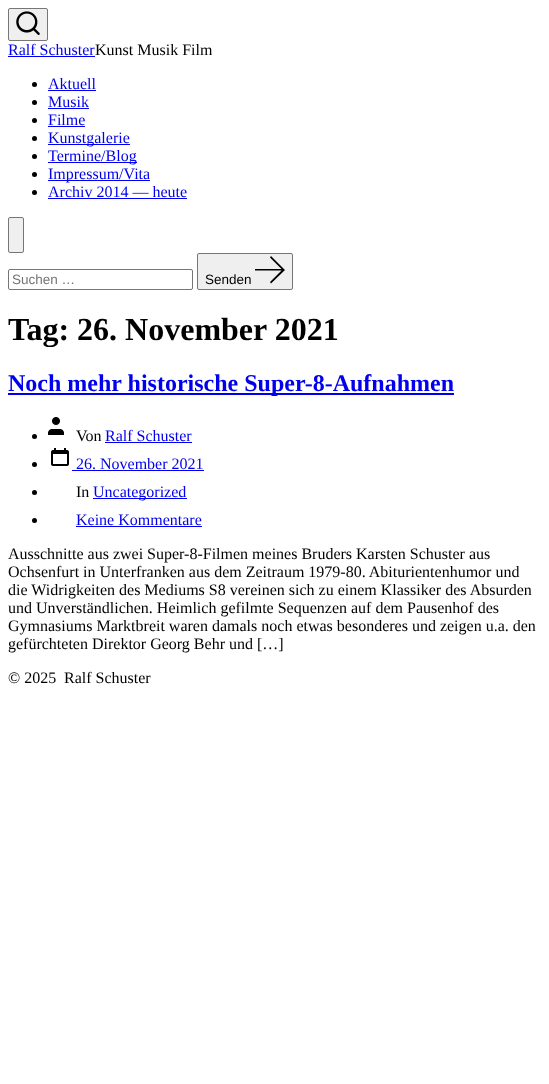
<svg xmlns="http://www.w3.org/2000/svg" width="549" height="1084">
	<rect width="100%" height="100%" fill="#FFFFFF" />
	<rect x="8.5" y="8.5" width="39" height="32" rx="1.5" fill="#EFEFEF" stroke="#767676" />
	<image x="16" y="11" width="24" height="24" href="assets/img1.png" />
	<text x="8" y="55" font-family="Liberation Serif" font-size="16" fill="#0000EE">Ralf Schuster</text>
	<rect x="8" y="56" width="87" height="1" fill="#0000EE" />
	<text x="95" y="55" font-family="Liberation Serif" font-size="16" fill="#000000">Kunst Musik Film</text>
	<circle cx="34.5" cy="84.5" r="2.5" fill="#000000" />
	<text x="48" y="89" font-family="Liberation Serif" font-size="16" fill="#0000EE">Aktuell</text>
	<rect x="48" y="90" width="48" height="1" fill="#0000EE" />
	<circle cx="34.5" cy="102.5" r="2.5" fill="#000000" />
	<text x="48" y="107" font-family="Liberation Serif" font-size="16" fill="#0000EE">Musik</text>
	<rect x="48" y="108" width="41" height="1" fill="#0000EE" />
	<circle cx="34.5" cy="120.5" r="2.5" fill="#000000" />
	<text x="48" y="125" font-family="Liberation Serif" font-size="16" fill="#0000EE">Filme</text>
	<rect x="48" y="126" width="37" height="1" fill="#0000EE" />
	<circle cx="34.5" cy="138.5" r="2.5" fill="#000000" />
	<rect x="48" y="144" width="82" height="1" fill="#0000EE" />
	<text x="48" y="143" font-family="Liberation Serif" font-size="16" fill="#0000EE">Kunstgalerie</text>
	<circle cx="34.5" cy="156.5" r="2.5" fill="#000000" />
	<rect x="48" y="162" width="89" height="1" fill="#0000EE" />
	<text x="48" y="161" font-family="Liberation Serif" font-size="16" fill="#0000EE">Termine/Blog</text>
	<circle cx="34.5" cy="174.5" r="2.5" fill="#000000" />
	<rect x="48" y="180" width="102" height="1" fill="#0000EE" />
	<text x="48" y="179" font-family="Liberation Serif" font-size="16" fill="#0000EE">Impressum/Vita</text>
	<circle cx="34.5" cy="192.5" r="2.5" fill="#000000" />
	<text x="48" y="197" font-family="Liberation Serif" font-size="16" fill="#0000EE">Archiv 2014 — heute</text>
	<rect x="48" y="198" width="139" height="1" fill="#0000EE" />
	<rect x="8.5" y="217.5" width="15" height="35" rx="1.5" fill="#EFEFEF" stroke="#767676" />
	<rect x="8.5" y="269.5" width="184" height="20" rx="1.5" fill="none" stroke="#767676" />
	<text x="12" y="284" font-family="Liberation Sans" font-size="13.5" fill="#757575">Suchen …</text>
	<rect x="197.5" y="253.5" width="95" height="36" rx="1.5" fill="#EFEFEF" stroke="#767676" />
	<text x="205" y="284" font-family="Liberation Sans" font-size="13.5" fill="#000000">Senden</text>
	<path d="M271 256L285 270L271 283.5L270 282L281.5 270.5H255V269H281.5L270 257.5Z" fill="#000000" />
	<text x="8" y="340" font-family="Liberation Serif" font-size="32" font-weight="700" fill="#000000">Tag: 26. November 2021</text>
	<rect x="8" y="393" width="446" height="2" fill="#0000EE" />
	<text x="8" y="391" font-family="Liberation Serif" font-size="24" font-weight="700" fill="#0000EE">Noch mehr historische Super-8-Aufnahmen</text>
	<circle cx="34.5" cy="436.5" r="2.5" fill="#000000" />
	<image x="48" y="417" width="16" height="18" href="assets/img2.png" />
	<text x="76" y="441" font-family="Liberation Serif" font-size="16" fill="#000000">Von</text>
	<text x="105" y="441" font-family="Liberation Serif" font-size="16" fill="#0000EE">Ralf Schuster</text>
	<rect x="105" y="442" width="87" height="1" fill="#0000EE" />
	<circle cx="34.5" cy="464.5" r="2.5" fill="#000000" />
	<image x="51" y="448" width="18" height="18" href="assets/img3.png" />
	<text x="76" y="469" font-family="Liberation Serif" font-size="16" fill="#0000EE">26. November 2021</text>
	<rect x="72" y="470" width="132" height="1" fill="#0000EE" />
	<circle cx="34.5" cy="492.5" r="2.5" fill="#000000" />
	<text x="76" y="497" font-family="Liberation Serif" font-size="16" fill="#000000">In</text>
	<rect x="93" y="498" width="94" height="1" fill="#0000EE" />
	<text x="93" y="497" font-family="Liberation Serif" font-size="16" fill="#0000EE">Uncategorized</text>
	<circle cx="34.5" cy="520.5" r="2.5" fill="#000000" />
	<text x="76" y="525" font-family="Liberation Serif" font-size="16" fill="#0000EE">Keine Kommentare</text>
	<rect x="76" y="526" width="126" height="1" fill="#0000EE" />
	<g font-family="Liberation Serif" font-size="16" fill="#000000">
		<text x="8" y="559">Ausschnitte aus zwei Super-8-Filmen meines Bruders Karsten Schuster aus</text>
		<text x="8" y="577">Ochsenfurt in Unterfranken aus dem Zeitraum 1979-80. Abiturientenhumor und</text>
		<text x="8" y="595">die Widrigkeiten des Mediums S8 vereinen sich zu einem Klassiker des Absurden</text>
		<text x="8" y="613">und Unverständlichen. Heimlich gefilmte Sequenzen auf dem Pausenhof des</text>
		<text x="8" y="631">Gymnasiums Marktbreit waren damals noch etwas besonderes und zeigen u.a. den</text>
		<text x="8" y="649">gefürchteten Direktor Georg Behr und […]</text>
		<text x="8" y="683">© 2025</text>
		<text x="64" y="683">Ralf Schuster</text>
	</g>
</svg>
